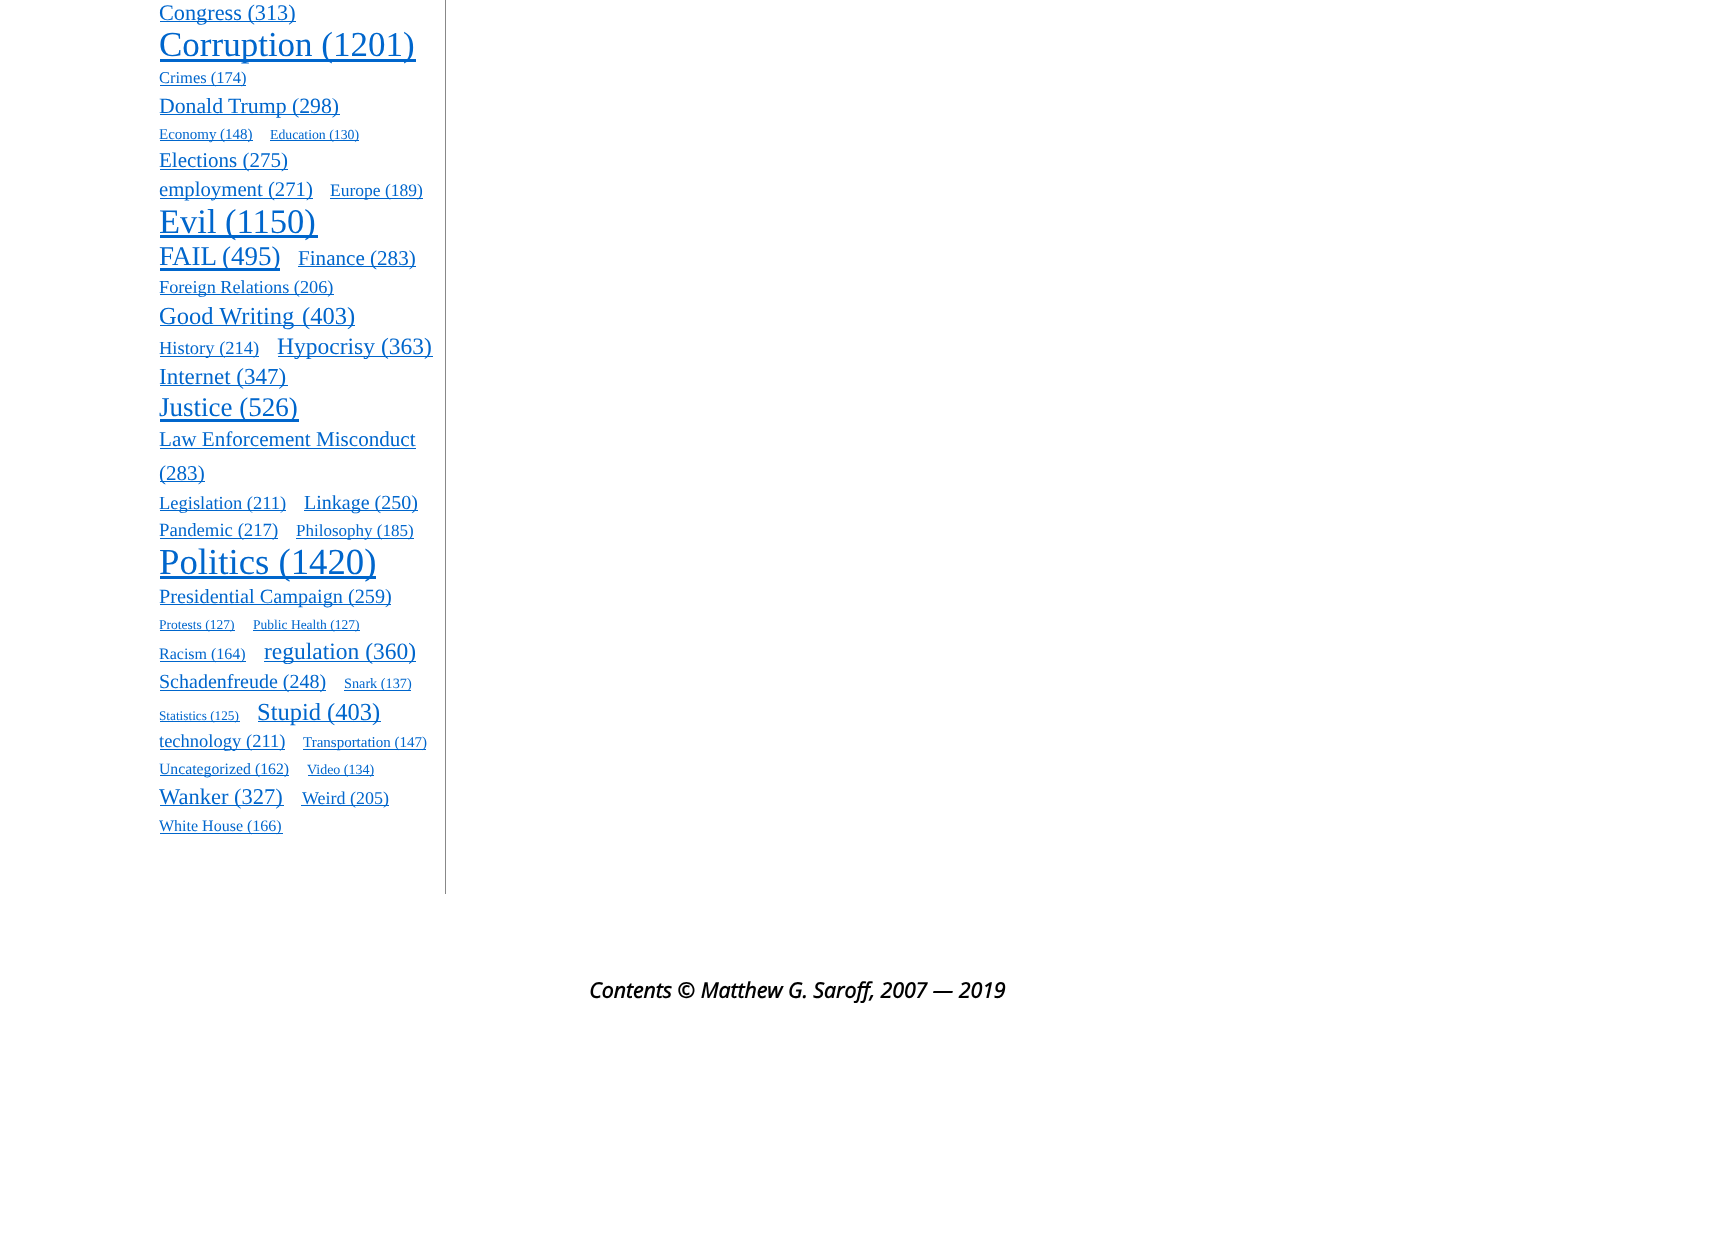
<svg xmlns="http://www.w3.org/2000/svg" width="1726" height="1253">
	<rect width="100%" height="100%" fill="#FFFFFF" />
	<rect x="445" y="0" width="1" height="894" fill="#888888" />
	<rect x="160" y="21" width="136" height="1" fill="#0066CC" />
	<text x="159" y="20" font-family="Tinos" font-size="22.25" fill="#0066CC">Congress (313)</text>
	<rect x="160" y="59" width="256" height="3" fill="#0066CC" />
	<text x="159" y="56" font-family="Tinos" font-size="35" fill="#0066CC">Corruption (1201)</text>
	<rect x="160" y="85" width="86" height="1" fill="#0066CC" />
	<text x="159" y="83" font-family="Tinos" font-size="16.5" fill="#0066CC">Crimes (174)</text>
	<rect x="160" y="114" width="180" height="1" fill="#0066CC" />
	<text x="159" y="113" font-family="Tinos" font-size="21.75" fill="#0066CC">Donald Trump (298)</text>
	<rect x="160" y="140" width="56" height="1" fill="#0066CC" />
	<text x="159" y="139" font-family="Tinos" font-size="15" fill="#0066CC">Economy</text>
	<rect x="216" y="140" width="37" height="1" fill="#0066CC" />
	<text x="220" y="139" font-family="Tinos" font-size="15" fill="#0066CC">(148)</text>
	<rect x="270" y="140" width="89" height="1" fill="#0066CC" />
	<text x="270" y="139" font-family="Tinos" font-size="13.75" fill="#0066CC">Education (130)</text>
	<rect x="160" y="169" width="128" height="1" fill="#0066CC" />
	<text x="159" y="167" font-family="Tinos" font-size="21" fill="#0066CC">Elections (275)</text>
	<rect x="160" y="198" width="153" height="1" fill="#0066CC" />
	<text x="159" y="196" font-family="Tinos" font-size="20.75" fill="#0066CC">employment (271)</text>
	<rect x="330" y="198" width="93" height="1" fill="#0066CC" />
	<text x="330" y="196" font-family="Tinos" font-size="17.5" fill="#0066CC">Europe (189)</text>
	<rect x="160" y="235" width="158" height="3" fill="#0066CC" />
	<text x="159" y="233" font-family="Tinos" font-size="34.5" fill="#0066CC">Evil (1150)</text>
	<text x="159" y="265" font-family="Tinos" font-size="27" fill="#0066CC">FAIL</text>
	<rect x="160" y="268" width="120" height="3" fill="#0066CC" />
	<text x="222" y="265" font-family="Tinos" font-size="27" fill="#0066CC">(495)</text>
	<rect x="298" y="266" width="118" height="1" fill="#0066CC" />
	<text x="298" y="265" font-family="Tinos" font-size="21.1" fill="#0066CC">Finance (283)</text>
	<rect x="160" y="294" width="174" height="1" fill="#0066CC" />
	<text x="159" y="293" font-family="Tinos" font-size="18.25" fill="#0066CC">Foreign Relations (206)</text>
	<rect x="160" y="325" width="135" height="1" fill="#0066CC" />
	<text x="159" y="324" font-family="Tinos" font-size="24.5" fill="#0066CC">Good Writing</text>
	<rect x="295" y="325" width="60" height="1" fill="#0066CC" />
	<text x="302" y="324" font-family="Tinos" font-size="24.5" fill="#0066CC">(403)</text>
	<rect x="160" y="356" width="99" height="1" fill="#0066CC" />
	<text x="159" y="354" font-family="Tinos" font-size="18.5" fill="#0066CC">History (214)</text>
	<rect x="278" y="356" width="97" height="1" fill="#0066CC" />
	<text x="277" y="354" font-family="Tinos" font-size="23.5" fill="#0066CC">Hypocrisy</text>
	<rect x="375" y="356" width="58" height="1" fill="#0066CC" />
	<text x="381" y="354" font-family="Tinos" font-size="23.5" fill="#0066CC">(363)</text>
	<rect x="160" y="385" width="128" height="1" fill="#0066CC" />
	<text x="159" y="384" font-family="Tinos" font-size="23" fill="#0066CC">Internet (347)</text>
	<rect x="160" y="419" width="139" height="3" fill="#0066CC" />
	<text x="159" y="416" font-family="Tinos" font-size="27" fill="#0066CC">Justice (526)</text>
	<text x="159" y="446" font-family="Tinos" font-size="21.1" fill="#0066CC">Law Enforcement Misconduct</text>
	<rect x="160" y="448" width="256" height="1" fill="#0066CC" />
	<rect x="160" y="481" width="45" height="1" fill="#0066CC" />
	<text x="159" y="480" font-family="Tinos" font-size="21.1" fill="#0066CC">(283)</text>
	<rect x="160" y="510" width="126" height="1" fill="#0066CC" />
	<text x="159" y="509" font-family="Tinos" font-size="18.5" fill="#0066CC">Legislation (211)</text>
	<rect x="304" y="510" width="114" height="1" fill="#0066CC" />
	<text x="304" y="509" font-family="Tinos" font-size="20" fill="#0066CC">Linkage (250)</text>
	<rect x="160" y="538" width="118" height="1" fill="#0066CC" />
	<text x="159" y="536" font-family="Tinos" font-size="18.75" fill="#0066CC">Pandemic (217)</text>
	<rect x="296" y="538" width="118" height="1" fill="#0066CC" />
	<text x="296" y="536" font-family="Tinos" font-size="17" fill="#0066CC">Philosophy (185)</text>
	<rect x="160" y="576" width="216" height="3" fill="#0066CC" />
	<text x="159" y="574" font-family="Tinos" font-size="36.75" fill="#0066CC">Politics (1420)</text>
	<rect x="160" y="604" width="231" height="1" fill="#0066CC" />
	<text x="159" y="603" font-family="Tinos" font-size="20.25" fill="#0066CC">Presidential Campaign (259)</text>
	<rect x="160" y="630" width="75" height="1" fill="#0066CC" />
	<text x="159" y="629" font-family="Tinos" font-size="13.5" fill="#0066CC">Protests (127)</text>
	<rect x="253" y="630" width="107" height="1" fill="#0066CC" />
	<text x="253" y="629" font-family="Tinos" font-size="13.5" fill="#0066CC">Public Health (127)</text>
	<rect x="160" y="661" width="86" height="1" fill="#0066CC" />
	<text x="159" y="659" font-family="Tinos" font-size="16" fill="#0066CC">Racism (164)</text>
	<rect x="264" y="661" width="152" height="1" fill="#0066CC" />
	<text x="264" y="659" font-family="Tinos" font-size="23.5" fill="#0066CC">regulation (360)</text>
	<rect x="160" y="690" width="166" height="1" fill="#0066CC" />
	<text x="159" y="688" font-family="Tinos" font-size="20" fill="#0066CC">Schadenfreude (248)</text>
	<rect x="344" y="690" width="67" height="1" fill="#0066CC" />
	<text x="344" y="688" font-family="Tinos" font-size="14.25" fill="#0066CC">Snark (137)</text>
	<rect x="160" y="721" width="80" height="1" fill="#0066CC" />
	<text x="159" y="720" font-family="Tinos" font-size="13.25" fill="#0066CC">Statistics (125)</text>
	<rect x="258" y="721" width="123" height="1" fill="#0066CC" />
	<text x="257" y="720" font-family="Tinos" font-size="24.5" fill="#0066CC">Stupid (403)</text>
	<rect x="160" y="749" width="81" height="1" fill="#0066CC" />
	<text x="159" y="747" font-family="Tinos" font-size="18.5" fill="#0066CC">technology</text>
	<rect x="241" y="749" width="44" height="1" fill="#0066CC" />
	<text x="246" y="747" font-family="Tinos" font-size="18.5" fill="#0066CC">(211)</text>
	<rect x="303" y="749" width="123" height="1" fill="#0066CC" />
	<text x="303" y="747" font-family="Tinos" font-size="15" fill="#0066CC">Transportation (147)</text>
	<rect x="160" y="775" width="91" height="1" fill="#0066CC" />
	<text x="159" y="774" font-family="Tinos" font-size="15.75" fill="#0066CC">Uncategorized</text>
	<rect x="251" y="775" width="38" height="1" fill="#0066CC" />
	<text x="255" y="774" font-family="Tinos" font-size="15.75" fill="#0066CC">(162)</text>
	<rect x="308" y="775" width="66" height="1" fill="#0066CC" />
	<text x="307" y="774" font-family="Tinos" font-size="14" fill="#0066CC">Video (134)</text>
	<rect x="160" y="805" width="124" height="1" fill="#0066CC" />
	<text x="159" y="804" font-family="Tinos" font-size="22.5" fill="#0066CC">Wanker (327)</text>
	<rect x="301" y="805" width="88" height="1" fill="#0066CC" />
	<text x="302" y="804" font-family="Tinos" font-size="18" fill="#0066CC">Weird (205)</text>
	<rect x="160" y="833" width="123" height="1" fill="#0066CC" />
	<text x="159" y="831" font-family="Tinos" font-size="16" fill="#0066CC">White House (166)</text>
	<text x="589" y="998" font-family="Open Sans" font-size="21.25" font-weight="700" font-style="italic" fill="#000000">Contents © Matthew G. Saroff, 2007 — 2019</text>
</svg>
